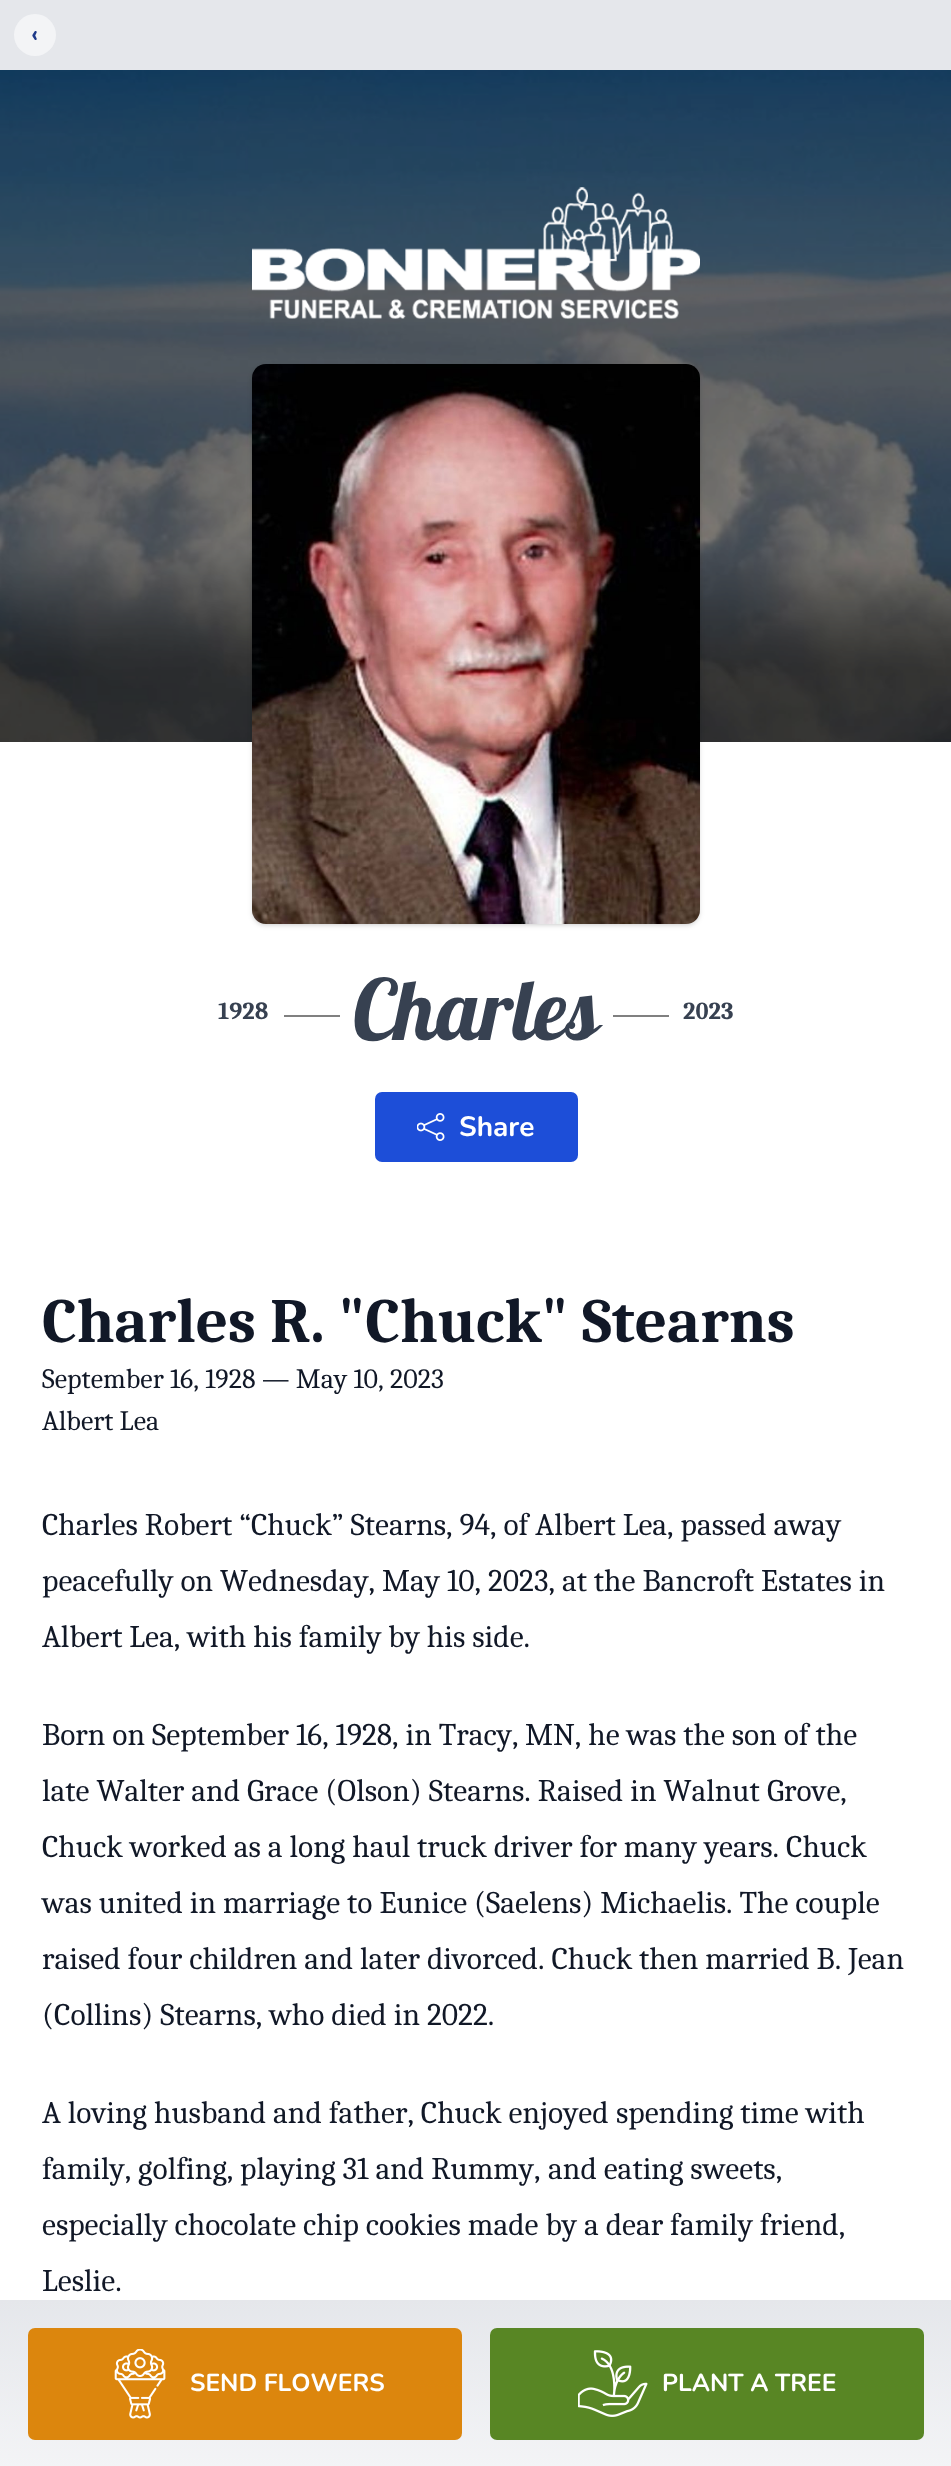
<svg xmlns="http://www.w3.org/2000/svg" width="951" height="2466">
	<style>*{font-kerning:none!important;font-variant-ligatures:none!important}</style>
	<defs>
		<linearGradient id="g1" gradientUnits="userSpaceOnUse" x1="476" y1="2300" x2="476" y2="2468"><stop offset="0" stop-color="#E5E7EB" /><stop offset="1" stop-color="#F3F4F6" /></linearGradient>
	</defs>
	<rect width="100%" height="100%" fill="#FFFFFF" />
	<rect x="0" y="0" width="951" height="70" fill="#E5E7EB" />
	<circle cx="35" cy="35" r="21" fill="#F3F4F6" />
	<text x="31" y="42" font-family="Nunito" font-size="24.5" font-weight="700" fill="#1E3A8A">‹</text>
	<image x="0" y="70" width="951" height="672" href="assets/img1.png" />
	<image x="252" y="187" width="448" height="132" href="assets/img2.png" />
	<rect x="254" y="368" width="444" height="556" rx="12" fill="#000000" fill-opacity="0.1" filter="blur(2px)" />
	<rect x="252" y="366" width="448" height="560" rx="14" fill="#000000" fill-opacity="0.1" filter="blur(2.5px)" />
	<image x="252" y="364" width="448" height="560" href="assets/img3.png" />
	<text x="218" y="1019" font-family="Caladea" font-size="24.5" font-weight="700" fill="#374151">1928</text>
	<rect x="284" y="1015" width="56" height="2" fill="#808080" />
	<text x="353" y="1040" font-family="Lobster" font-size="84" fill="#374151">Charles</text>
	<rect x="613" y="1015" width="56" height="2" fill="#808080" />
	<text x="683" y="1019" font-family="Caladea" font-size="24.5" font-weight="700" fill="#374151">2023</text>
	<rect x="375" y="1092" width="203" height="70" rx="7" fill="#1D4ED8" />
	<image x="417" y="1113" width="28" height="28" href="assets/img4.png" />
	<text x="459" y="1136" font-family="Nunito" font-size="28" font-weight="700" fill="#FFFFFF">Share</text>
	<text x="42" y="1342" font-family="Caladea" font-size="63" font-weight="700" fill="#111827">Charles R. "Chuck" Stearns</text>
	<g font-family="Caladea" font-size="28" fill="#111827">
		<text x="42" y="1388">September 16, 1928 — May 10, 2023</text>
		<text x="42" y="1430">Albert Lea</text>
	</g>
	<g font-family="Caladea" font-size="31.5" fill="#111827">
		<text x="42" y="1535">Charles Robert “Chuck” Stearns, 94, of Albert Lea, passed away</text>
		<text x="42" y="1591">peacefully on Wednesday,</text>
		<text x="382" y="1591">May 10, 2023, at the Bancroft Estates in</text>
		<text x="42" y="1647">Albert Lea, with his family by his side.</text>
		<text x="42" y="1745">Born on September 16, 1928, in Tracy,</text>
		<text x="525" y="1745">MN, he was the son of the</text>
		<text x="42" y="1801">late Walter and Grace (Olson) Stearns. Raised in Walnut</text>
		<text x="767" y="1801">Grove,</text>
		<text x="42" y="1857">Chuck worked as a long haul truck driver for many years. Chuck</text>
		<text x="42" y="1913">was united in marriage to Eunice (Saelens) Michaelis. The couple</text>
		<text x="42" y="1969">raised four children and later divorced. Chuck then married B. Jean</text>
		<text x="42" y="2025">(Collins) Stearns, who died in 2022.</text>
		<text x="42" y="2123">A loving husband and father, Chuck enjoyed</text>
		<text x="616" y="2123">spending time with</text>
		<text x="42" y="2179">family, golfing,</text>
		<text x="240" y="2179">playing 31 and Rummy,</text>
		<text x="548" y="2179">and eating sweets,</text>
		<text x="42" y="2235">especially chocolate chip cookies made by a dear family friend,</text>
		<text x="42" y="2291">Leslie.</text>
	</g>
	<rect x="0" y="2300" width="951" height="166" fill="url(#g1)" />
	<rect x="28" y="2328" width="434" height="112" rx="7" fill="#DC860D" />
	<image x="114" y="2349" width="52" height="70" href="assets/img5.png" />
	<text x="190" y="2391" font-family="Nunito" font-size="24.5" font-weight="700" fill="#FFFFFF">SEND FLOWERS</text>
	<rect x="490" y="2328" width="434" height="112" rx="7" fill="#588624" />
	<image x="578" y="2350" width="70" height="67" href="assets/img6.png" />
	<text x="662" y="2391" font-family="Nunito" font-size="24.5" font-weight="700" fill="#FFFFFF">PLANT A TREE</text>
</svg>
